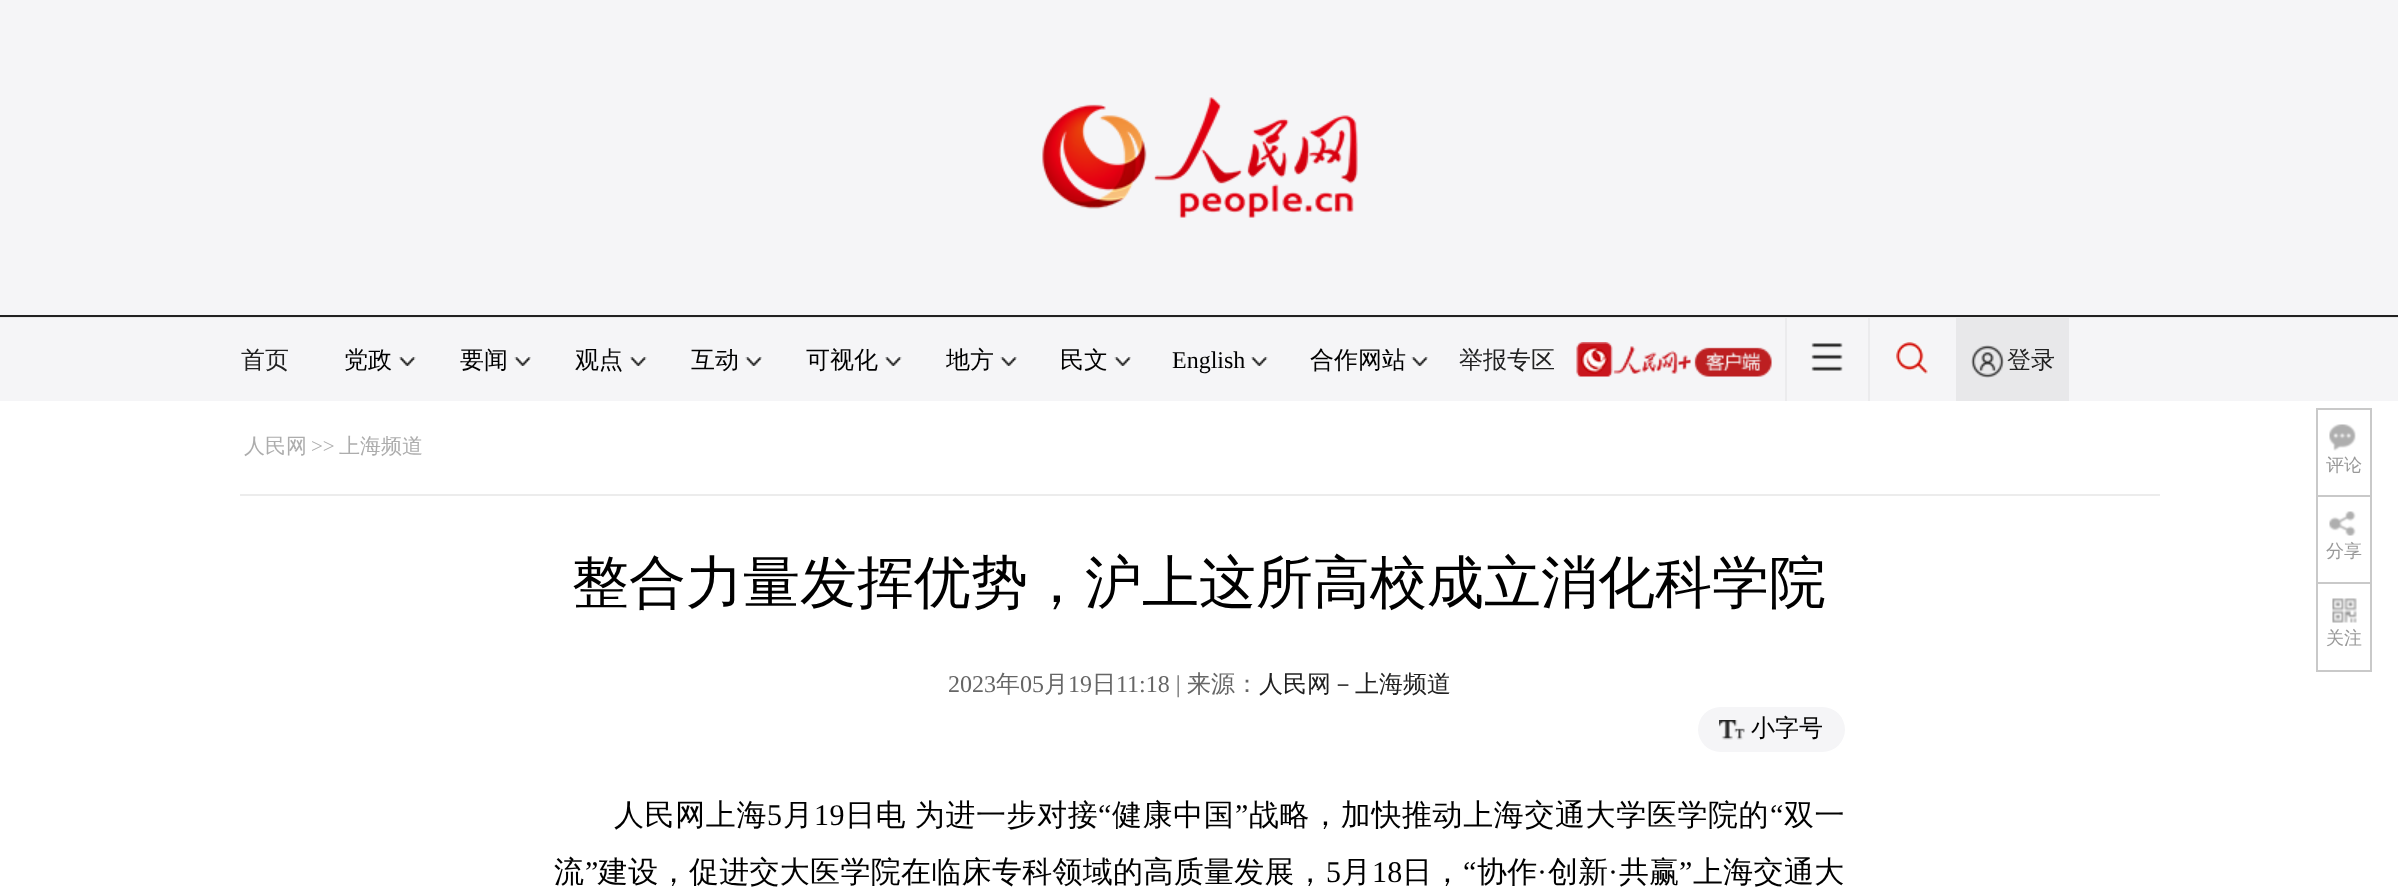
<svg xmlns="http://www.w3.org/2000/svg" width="2398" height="889">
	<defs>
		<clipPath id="clip1"><rect x="2316" y="408" width="56" height="87" /></clipPath>
		<clipPath id="clip2"><rect x="2316" y="495" width="56" height="87" /></clipPath>
	</defs>
	<rect width="100%" height="100%" fill="#FFFFFF" />
	<rect x="0" y="0" width="2398" height="315" fill="#F5F5F7" />
	<rect x="0" y="315" width="2398" height="2" fill="#212121" />
	<image x="1042" y="97" width="316" height="121" href="assets/img1.png" />
	<rect x="0" y="317" width="2398" height="1" fill="#E9E9E9" />
	<rect x="0" y="318" width="2398" height="83" fill="#F5F5F7" />
	<text x="241" y="368" font-family="WenQuanYi Zen Hei" font-size="24" font-weight="500" fill="#212121">首页</text>
	<text x="344" y="368" font-family="WenQuanYi Zen Hei" font-size="24" font-weight="500" fill="#000000">党政</text>
	<image x="399" y="357" width="17" height="9" href="assets/img2.png" />
	<text x="460" y="368" font-family="WenQuanYi Zen Hei" font-size="24" font-weight="500" fill="#000000">要闻</text>
	<image x="514" y="357" width="17" height="9" href="assets/img3.png" />
	<text x="575" y="368" font-family="WenQuanYi Zen Hei" font-size="24" font-weight="500" fill="#000000">观点</text>
	<image x="630" y="357" width="17" height="9" href="assets/img4.png" />
	<text x="691" y="368" font-family="WenQuanYi Zen Hei" font-size="24" font-weight="500" fill="#000000">互动</text>
	<image x="745" y="357" width="17" height="9" href="assets/img5.png" />
	<text x="806" y="368" font-family="WenQuanYi Zen Hei" font-size="24" font-weight="500" fill="#000000">可视化</text>
	<image x="885" y="357" width="17" height="9" href="assets/img4.png" />
	<text x="946" y="368" font-family="WenQuanYi Zen Hei" font-size="24" font-weight="500" fill="#000000">地方</text>
	<image x="1000" y="357" width="17" height="9" href="assets/img6.png" />
	<text x="1060" y="368" font-family="WenQuanYi Zen Hei" font-size="24" font-weight="500" fill="#000000">民文</text>
	<image x="1114" y="357" width="17" height="9" href="assets/img5.png" />
	<text x="1172" y="368" font-family="Liberation Serif" font-size="24" fill="#000000">English</text>
	<image x="1251" y="357" width="17" height="9" href="assets/img2.png" />
	<text x="1310" y="368" font-family="WenQuanYi Zen Hei" font-size="24" font-weight="500" fill="#000000">合作网站</text>
	<image x="1411" y="357" width="17" height="9" href="assets/img5.png" />
	<text x="1459" y="368" font-family="WenQuanYi Zen Hei" font-size="24" font-weight="500" fill="#212121">举报专区</text>
	<image x="1576" y="342" width="196" height="35" href="assets/img7.png" />
	<rect x="1868" y="318" width="2" height="83" fill="#EBEBED" />
	<rect x="1785" y="318" width="2" height="83" fill="#EBEBED" />
	<image x="1811" y="343" width="32" height="28" href="assets/img8.png" />
	<image x="1896" y="342" width="33" height="33" href="assets/img9.png" />
	<rect x="1956" y="318" width="113" height="83" fill="#E8E8EA" />
	<image x="1971" y="345" width="33" height="33" href="assets/img10.png" />
	<text x="2007" y="368" font-family="WenQuanYi Zen Hei" font-size="24" font-weight="500" fill="#212121">登录</text>
	<rect x="240" y="494" width="1920" height="2" fill="#ECECEC" />
	<text x="244" y="453" font-family="WenQuanYi Zen Hei" font-size="21" font-weight="500" fill="#ADADAD">人民网</text>
	<text x="311" y="453" font-family="Liberation Serif" font-size="21" fill="#ADADAD">&gt;&gt;</text>
	<text x="339" y="453" font-family="WenQuanYi Zen Hei" font-size="21" font-weight="500" fill="#ADADAD">上海频道</text>
	<text x="572" y="602" font-family="WenQuanYi Zen Hei" font-size="57" font-weight="500" fill="#000000">整合力量发挥优势，沪上这所高校成立消化科学院</text>
	<text x="948" y="692" font-family="Liberation Serif" font-size="24" fill="#666666">2023</text>
	<text x="996" y="692" font-family="WenQuanYi Zen Hei" font-size="24" font-weight="500" fill="#666666">年</text>
	<text x="1020" y="692" font-family="Liberation Serif" font-size="24" fill="#666666">05</text>
	<text x="1044" y="692" font-family="WenQuanYi Zen Hei" font-size="24" font-weight="500" fill="#666666">月</text>
	<text x="1068" y="692" font-family="Liberation Serif" font-size="24" fill="#666666">19</text>
	<text x="1092" y="692" font-family="WenQuanYi Zen Hei" font-size="24" font-weight="500" fill="#666666">日</text>
	<text x="1116" y="692" font-family="Liberation Serif" font-size="24" fill="#666666">11:18 |</text>
	<text x="1187" y="692" font-family="WenQuanYi Zen Hei" font-size="24" font-weight="500" fill="#666666">来源：</text>
	<text x="1259" y="692" font-family="WenQuanYi Zen Hei" font-size="24" font-weight="500" fill="#212121">人民网－上海频道</text>
	<rect x="1698" y="707" width="147" height="45" rx="22.5" fill="#F5F5F7" />
	<image x="1719" y="720" width="26" height="20" href="assets/img11.png" />
	<text x="1751" y="736" font-family="WenQuanYi Zen Hei" font-size="24" font-weight="500" fill="#000000">小字号</text>
	<text x="614" y="825" font-family="WenQuanYi Zen Hei" font-size="30" font-weight="500" letter-spacing="0.6" fill="#000000">人民网上海</text>
	<text x="767" y="825" font-family="Liberation Serif" font-size="30" letter-spacing="0.6" fill="#000000">5</text>
	<text x="783" y="825" font-family="WenQuanYi Zen Hei" font-size="30" font-weight="500" letter-spacing="0.6" fill="#000000">月</text>
	<text x="814" y="825" font-family="Liberation Serif" font-size="30" letter-spacing="0.6" fill="#000000">19</text>
	<text x="845" y="825" word-spacing="-1" font-family="WenQuanYi Zen Hei" font-size="30" font-weight="500" letter-spacing="0.6" fill="#000000">日电 为进一步对接</text>
	<text x="1098" y="825" font-family="Liberation Serif" font-size="30" letter-spacing="0.6" fill="#000000">“</text>
	<text x="1112" y="825" font-family="WenQuanYi Zen Hei" font-size="30" font-weight="500" letter-spacing="0.6" fill="#000000">健康中国</text>
	<text x="1235" y="825" font-family="Liberation Serif" font-size="30" letter-spacing="0.6" fill="#000000">”</text>
	<text x="1249" y="825" font-family="WenQuanYi Zen Hei" font-size="30" font-weight="500" letter-spacing="0.6" fill="#000000">战略，加快推动上海交通大学医学院的</text>
	<text x="1770" y="825" font-family="Liberation Serif" font-size="30" letter-spacing="0.6" fill="#000000">“</text>
	<text x="1784" y="825" font-family="WenQuanYi Zen Hei" font-size="30" font-weight="500" letter-spacing="0.6" fill="#000000">双一</text>
	<text x="554" y="882" font-family="WenQuanYi Zen Hei" font-size="30" font-weight="500" letter-spacing="0.3" fill="#000000">流</text>
	<text x="585" y="882" font-family="Liberation Serif" font-size="30" letter-spacing="0.3" fill="#000000">”</text>
	<text x="598" y="882" font-family="WenQuanYi Zen Hei" font-size="30" font-weight="500" letter-spacing="0.3" fill="#000000">建设，促进交大医学院在临床专科领域的高质量发展，</text>
	<text x="1326" y="882" font-family="Liberation Serif" font-size="30" letter-spacing="0.3" fill="#000000">5</text>
	<text x="1341" y="882" font-family="WenQuanYi Zen Hei" font-size="30" font-weight="500" letter-spacing="0.3" fill="#000000">月</text>
	<text x="1372" y="882" font-family="Liberation Serif" font-size="30" letter-spacing="0.3" fill="#000000">18</text>
	<text x="1402" y="882" font-family="WenQuanYi Zen Hei" font-size="30" font-weight="500" letter-spacing="0.3" fill="#000000">日，</text>
	<text x="1463" y="882" font-family="Liberation Serif" font-size="30" letter-spacing="0.3" fill="#000000">“</text>
	<g font-family="WenQuanYi Zen Hei" font-size="30" font-weight="500" letter-spacing="0.3" fill="#000000">
		<text x="1477" y="882">协作</text>
		<text x="1548" y="882">创新</text>
		<text x="1619" y="882">共赢</text>
	</g>
	<text x="1679" y="882" font-family="Liberation Serif" font-size="30" letter-spacing="0.3" fill="#000000">”</text>
	<text x="1693" y="882" font-family="WenQuanYi Zen Hei" font-size="30" font-weight="500" letter-spacing="0.3" fill="#000000">上海交通大</text>
	<g font-family="Liberation Serif" font-size="30" letter-spacing="0.3" fill="#000000">
		<text x="1537" y="882">·</text>
		<text x="1608" y="882">·</text>
	</g>
	<g clip-path="url(#clip1)">
		<rect x="2317" y="409" width="54" height="90" fill="none" stroke="#C9C9C9" stroke-width="2" />
	</g>
	<image x="2329" y="424" width="27" height="27" href="assets/img12.png" />
	<text x="2326" y="471" font-family="WenQuanYi Zen Hei" font-size="18" font-weight="500" fill="#999999">评论</text>
	<g clip-path="url(#clip2)">
		<rect x="2317" y="496" width="54" height="88" fill="none" stroke="#C9C9C9" stroke-width="2" />
	</g>
	<image x="2329" y="511" width="27" height="25" href="assets/img13.png" />
	<text x="2326" y="557" font-family="WenQuanYi Zen Hei" font-size="18" font-weight="500" fill="#999999">分享</text>
	<rect x="2317" y="583" width="54" height="88" fill="none" stroke="#C9C9C9" stroke-width="2" />
	<image x="2332" y="598" width="25" height="25" href="assets/img14.png" />
	<text x="2326" y="644" font-family="WenQuanYi Zen Hei" font-size="18" font-weight="500" fill="#999999">关注</text>
</svg>
